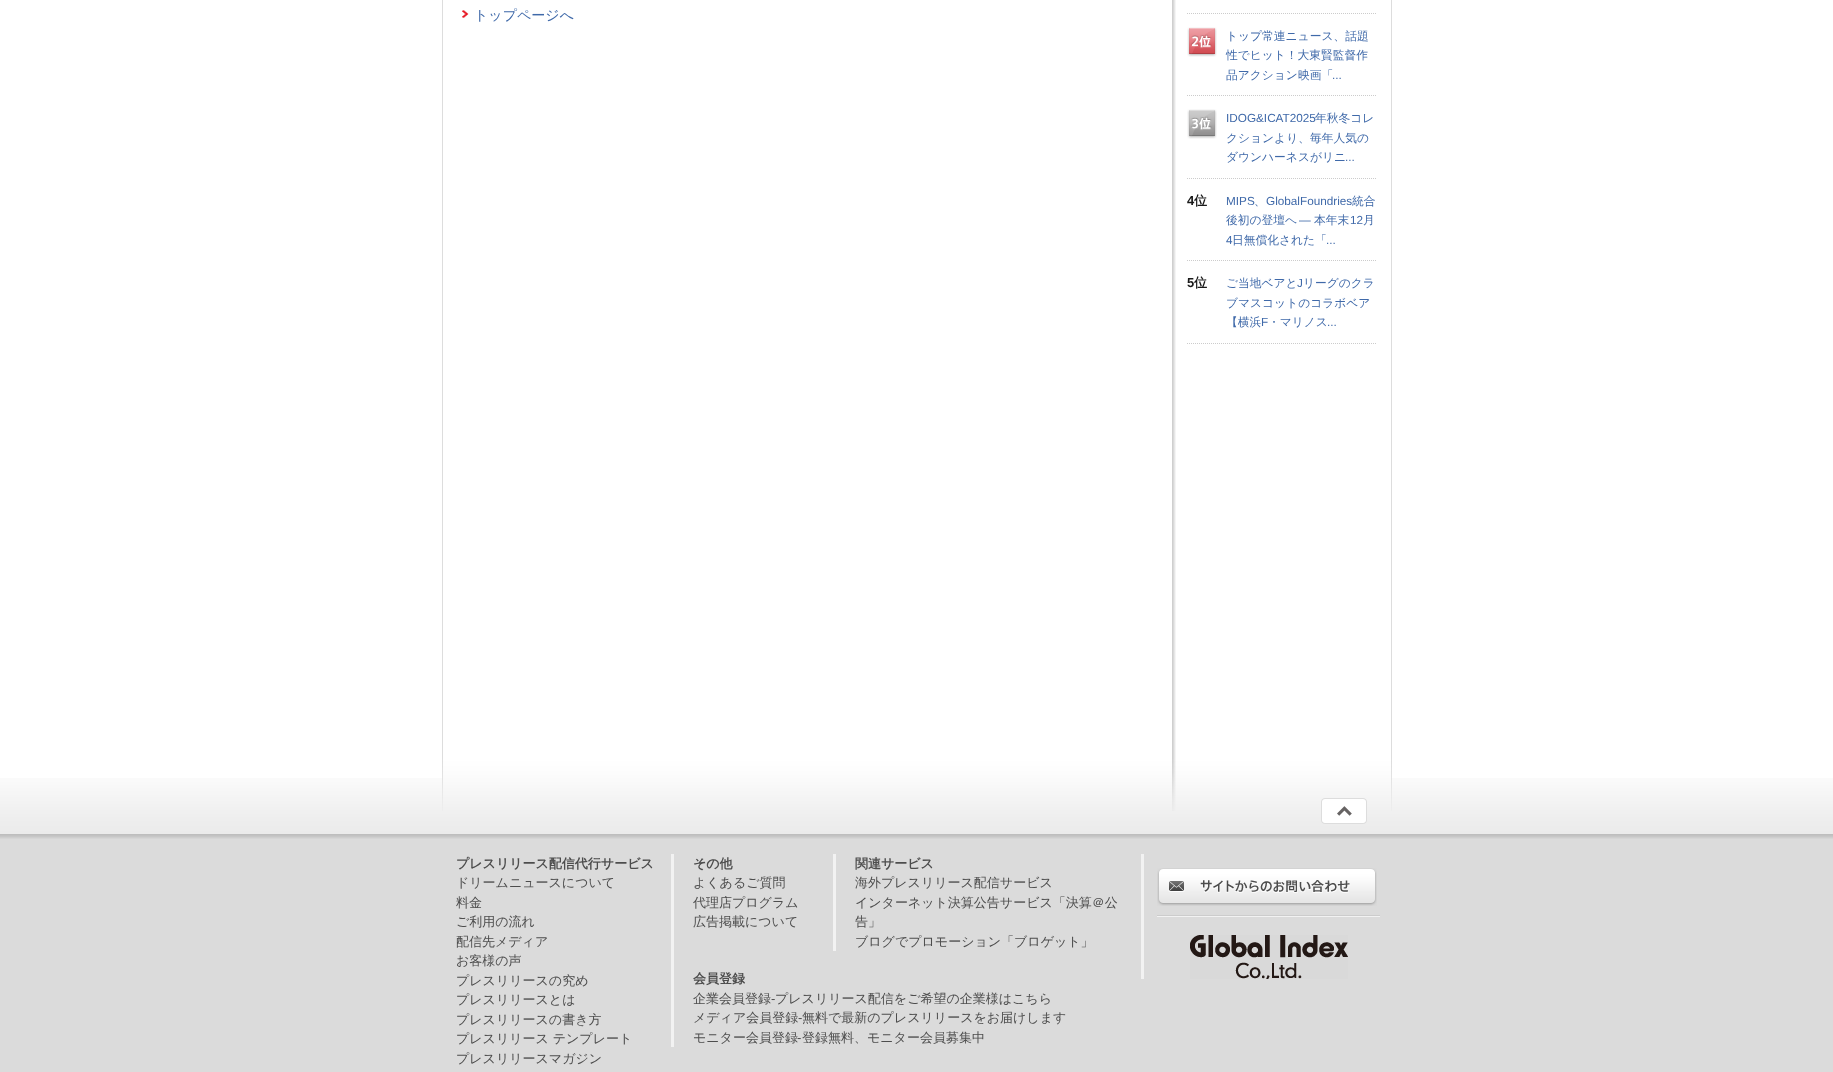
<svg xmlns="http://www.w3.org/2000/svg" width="1833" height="1072">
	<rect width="100%" height="100%" fill="#FFFFFF" />
	<image x="442" y="0" width="950" height="757" href="assets/img1.png" />
	<image x="462" y="10" width="7" height="8" href="assets/img2.png" />
	<text x="474" y="20" font-family="WenQuanYi Zen Hei" font-size="14" font-weight="500" fill="#3F69A9">トップページへ</text>
	<image x="1187" y="13" width="189" height="1" href="assets/img3.png" />
	<image x="1187" y="95" width="189" height="1" href="assets/img3.png" />
	<image x="1187" y="27" width="30" height="30" href="assets/img4.png" />
	<g font-family="WenQuanYi Zen Hei" font-size="11.75" font-weight="500" fill="#3F69A9">
		<text x="1226" y="40">トップ常連ニュース、話題</text>
		<text x="1226" y="59">性でヒット！大東賢監督作</text>
		<text x="1226" y="79">品アクション映画「</text>
	</g>
	<text x="1332" y="79" font-family="Liberation Sans" font-size="11.75" fill="#3F69A9">...</text>
	<image x="1187" y="178" width="189" height="1" href="assets/img3.png" />
	<image x="1187" y="109" width="30" height="30" href="assets/img5.png" />
	<text x="1226" y="122" font-family="Liberation Sans" font-size="11.75" fill="#3F69A9">IDOG&amp;ICAT2025</text>
	<g font-family="WenQuanYi Zen Hei" font-size="11.75" font-weight="500" fill="#3F69A9">
		<text x="1315" y="122">年秋冬コレ</text>
		<text x="1226" y="142">クションより、毎年人気の</text>
		<text x="1226" y="161">ダウンハーネスがリニ</text>
	</g>
	<text x="1345" y="161" font-family="Liberation Sans" font-size="11.75" fill="#3F69A9">...</text>
	<image x="1187" y="260" width="189" height="1" href="assets/img3.png" />
	<text x="1187" y="205" font-family="Liberation Sans" font-size="13" font-weight="700" fill="#1A1A1A">4</text>
	<text x="1194" y="205" font-family="WenQuanYi Zen Hei" font-size="13" font-weight="700" fill="#1A1A1A">位</text>
	<text x="1226" y="205" font-family="Liberation Sans" font-size="11.75" fill="#3F69A9">MIPS</text>
	<text x="1254" y="205" font-family="WenQuanYi Zen Hei" font-size="11.75" font-weight="500" fill="#3F69A9">、</text>
	<text x="1266" y="205" font-family="Liberation Sans" font-size="11.75" fill="#3F69A9">GlobalFoundries</text>
	<g font-family="WenQuanYi Zen Hei" font-size="11.75" font-weight="500" fill="#3F69A9">
		<text x="1352" y="205">統合</text>
		<text x="1226" y="224">後初の登壇へ</text>
	</g>
	<text x="1299" y="224" font-family="Liberation Sans" font-size="11.75" fill="#3F69A9">―</text>
	<text x="1314" y="224" font-family="WenQuanYi Zen Hei" font-size="11.75" font-weight="500" fill="#3F69A9">本年末</text>
	<text x="1350" y="224" font-family="Liberation Sans" font-size="11.75" fill="#3F69A9">12</text>
	<text x="1363" y="224" font-family="WenQuanYi Zen Hei" font-size="11.75" font-weight="500" fill="#3F69A9">月</text>
	<text x="1226" y="244" font-family="Liberation Sans" font-size="11.75" fill="#3F69A9">4</text>
	<text x="1232" y="244" font-family="WenQuanYi Zen Hei" font-size="11.75" font-weight="500" fill="#3F69A9">日無償化された「</text>
	<text x="1326" y="244" font-family="Liberation Sans" font-size="11.75" fill="#3F69A9">...</text>
	<image x="1187" y="343" width="189" height="1" href="assets/img3.png" />
	<text x="1187" y="287" font-family="Liberation Sans" font-size="13" font-weight="700" fill="#1A1A1A">5</text>
	<text x="1194" y="287" font-family="WenQuanYi Zen Hei" font-size="13" font-weight="700" fill="#1A1A1A">位</text>
	<text x="1226" y="287" font-family="WenQuanYi Zen Hei" font-size="11.75" font-weight="500" fill="#3F69A9">ご当地ベアと</text>
	<text x="1297" y="287" font-family="Liberation Sans" font-size="11.75" fill="#3F69A9">J</text>
	<g font-family="WenQuanYi Zen Hei" font-size="11.75" font-weight="500" fill="#3F69A9">
		<text x="1303" y="287">リーグのクラ</text>
		<text x="1226" y="307">ブマスコットのコラボベア</text>
		<text x="1226" y="326">【横浜</text>
	</g>
	<text x="1261" y="326" font-family="Liberation Sans" font-size="11.75" fill="#3F69A9">F</text>
	<text x="1268" y="326" font-family="WenQuanYi Zen Hei" font-size="11.75" font-weight="500" fill="#3F69A9">・マリノス</text>
	<text x="1327" y="326" font-family="Liberation Sans" font-size="11.75" fill="#3F69A9">...</text>
	<image x="0" y="778" width="1833" height="56" href="assets/img6.png" />
	<image x="442" y="757" width="950" height="54" href="assets/img7.png" />
	<image x="1321" y="798" width="46" height="26" href="assets/img8.png" />
	<rect x="0" y="839" width="1833" height="233" fill="#DBDBDB" />
	<image x="0" y="834" width="1833" height="5" href="assets/img9.png" />
	<text x="456" y="868" font-family="WenQuanYi Zen Hei" font-size="13" font-weight="700" fill="#4D4D4D">プレスリリース配信代行サービス</text>
	<g font-family="WenQuanYi Zen Hei" font-size="13" font-weight="500" fill="#4D4D4D">
		<text x="456" y="887">ドリームニュースについて</text>
		<text x="456" y="907">料金</text>
		<text x="456" y="926">ご利用の流れ</text>
		<text x="456" y="946">配信先メディア</text>
		<text x="456" y="965">お客様の声</text>
		<text x="456" y="985">プレスリリースの究め</text>
		<text x="456" y="1004">プレスリリースとは</text>
		<text x="456" y="1024">プレスリリースの書き方</text>
		<text x="456" y="1043">プレスリリース テンプレート</text>
		<text x="456" y="1063">プレスリリースマガジン</text>
	</g>
	<rect x="671" y="854" width="3" height="193" fill="#F2F2F2" />
	<text x="693" y="868" font-family="WenQuanYi Zen Hei" font-size="13" font-weight="700" fill="#4D4D4D">その他</text>
	<g font-family="WenQuanYi Zen Hei" font-size="13" font-weight="500" fill="#4D4D4D">
		<text x="693" y="887">よくあるご質問</text>
		<text x="693" y="907">代理店プログラム</text>
		<text x="693" y="926">広告掲載について</text>
	</g>
	<rect x="833" y="854" width="3" height="97" fill="#F2F2F2" />
	<text x="855" y="868" font-family="WenQuanYi Zen Hei" font-size="13" font-weight="700" fill="#4D4D4D">関連サービス</text>
	<g font-family="WenQuanYi Zen Hei" font-size="13" font-weight="500" fill="#4D4D4D">
		<text x="855" y="887">海外プレスリリース配信サービス</text>
		<text x="855" y="907">インターネット決算公告サービス「決算＠公</text>
		<text x="855" y="926">告」</text>
		<text x="855" y="946">ブログでプロモーション「ブロゲット」</text>
	</g>
	<text x="693" y="983" font-family="WenQuanYi Zen Hei" font-size="13" font-weight="700" fill="#4D4D4D">会員登録</text>
	<text x="693" y="1003" font-family="WenQuanYi Zen Hei" font-size="13" font-weight="500" fill="#4D4D4D">企業会員登録</text>
	<text x="771" y="1003" font-family="Liberation Sans" font-size="13" fill="#4D4D4D">-</text>
	<g font-family="WenQuanYi Zen Hei" font-size="13" font-weight="500" fill="#4D4D4D">
		<text x="775" y="1003">プレスリリース配信をご希望の企業様はこちら</text>
		<text x="693" y="1022">メディア会員登録</text>
	</g>
	<text x="798" y="1022" font-family="Liberation Sans" font-size="13" fill="#4D4D4D">-</text>
	<g font-family="WenQuanYi Zen Hei" font-size="13" font-weight="500" fill="#4D4D4D">
		<text x="802" y="1022">無料で最新のプレスリリースをお届けします</text>
		<text x="693" y="1042">モニター会員登録</text>
	</g>
	<text x="797" y="1042" font-family="Liberation Sans" font-size="13" fill="#4D4D4D">-</text>
	<text x="802" y="1042" font-family="WenQuanYi Zen Hei" font-size="13" font-weight="500" fill="#4D4D4D">登録無料、モニター会員募集中</text>
	<rect x="1141" y="854" width="3" height="125" fill="#F2F2F2" />
	<image x="1157" y="868" width="220" height="38" href="assets/img10.png" />
	<image x="1157" y="915" width="223" height="2" href="assets/img11.png" />
	<image x="1190" y="935" width="158" height="44" href="assets/img12.png" />
</svg>
